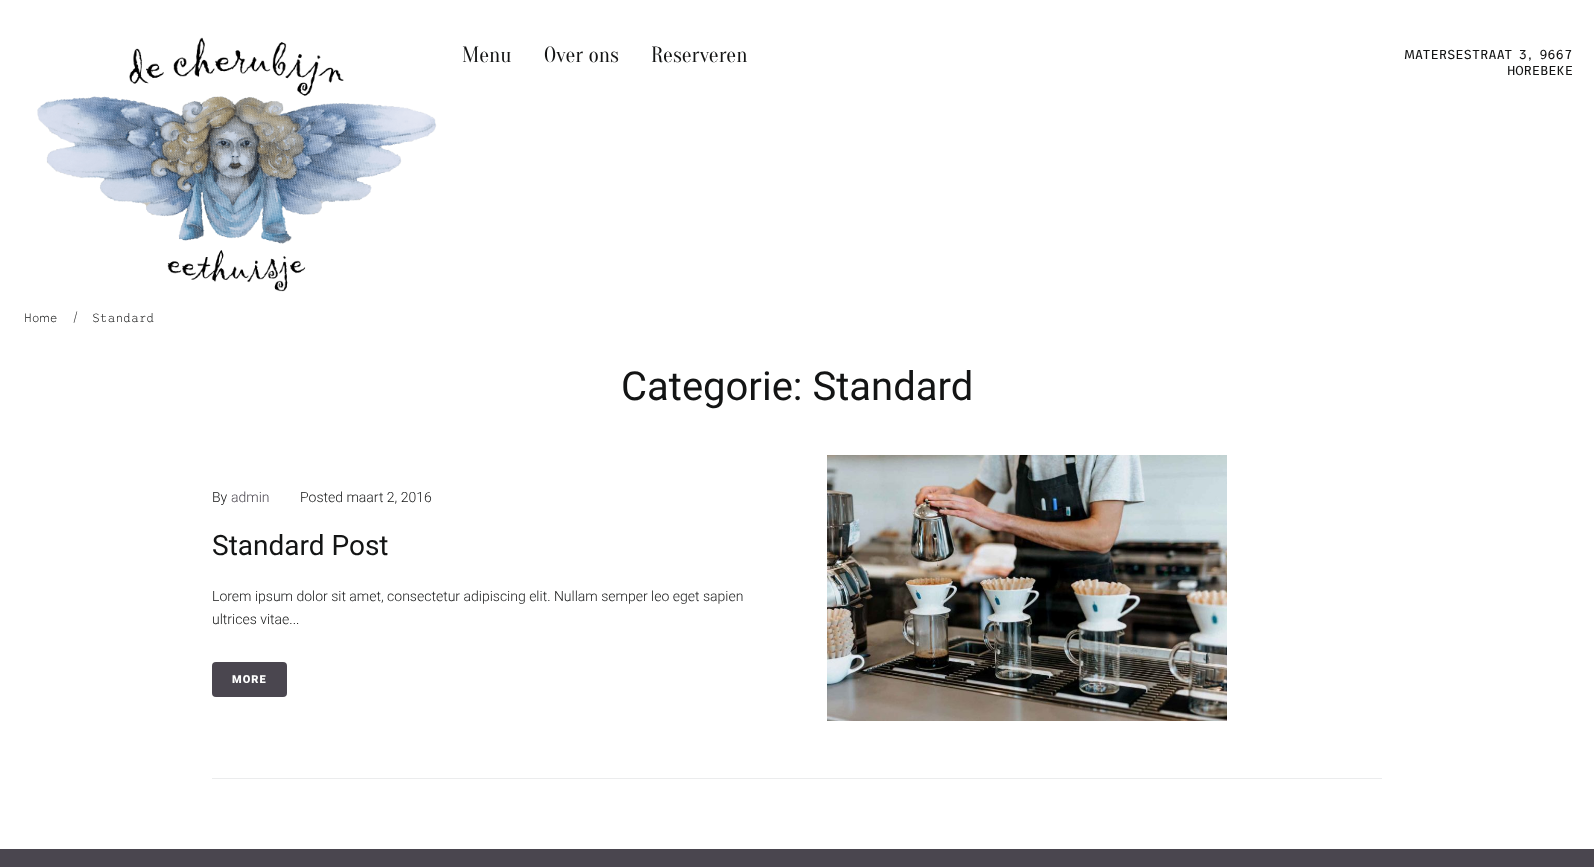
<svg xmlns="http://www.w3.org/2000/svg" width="1594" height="867">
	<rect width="100%" height="100%" fill="#FFFFFF" />
	<image x="37" y="37" width="400" height="255" href="assets/img1.png" />
	<g font-family="Oranienbaum" font-size="22" fill="#131414">
		<text x="462" y="62">Menu</text>
		<text x="544" y="62">Over ons</text>
		<text x="651" y="62">Reserveren</text>
	</g>
	<g font-family="Trispace" font-size="13" letter-spacing="-0.2" fill="#131414">
		<text x="1404" y="59">MATERSESTRAAT 3, 9667</text>
		<text x="1507" y="75">HOREBEKE</text>
	</g>
	<g font-family="Trispace" font-size="12" font-weight="200" fill="#131414">
		<text x="24" y="322">Home</text>
		<text x="73" y="321">/</text>
		<text x="92" y="322">Standard</text>
	</g>
	<text x="621" y="400" font-family="Roboto" font-size="40" fill="#131414">Categorie: Standard</text>
	<text x="212" y="502" font-family="Roboto" font-size="14" font-weight="300" fill="#131414">By</text>
	<text x="231" y="502" font-family="Roboto" font-size="14" font-weight="300" fill="#4A464F">admin</text>
	<text x="300" y="502" font-family="Roboto" font-size="14" font-weight="300" fill="#131414">Posted maart 2, 2016</text>
	<text x="212" y="555" font-family="Roboto" font-size="28" fill="#131414">Standard Post</text>
	<g font-family="Roboto" font-size="14" font-weight="300" fill="#131414">
		<text x="212" y="601">Lorem ipsum dolor sit amet, consectetur adipiscing elit. Nullam semper leo eget sapien</text>
		<text x="212" y="624">ultrices vitae...</text>
	</g>
	<rect x="212" y="662" width="75" height="35" rx="4" fill="#4A464F" />
	<text x="232" y="683" font-family="Roboto" font-size="11" font-weight="900" letter-spacing="1" fill="#FFFFFF">MORE</text>
	<image x="827" y="455" width="400" height="266" href="assets/img2.png" />
	<rect x="212" y="778" width="1170" height="1" fill="#EBECED" />
	<rect x="0" y="849" width="1594" height="18" fill="#4A464F" />
</svg>
